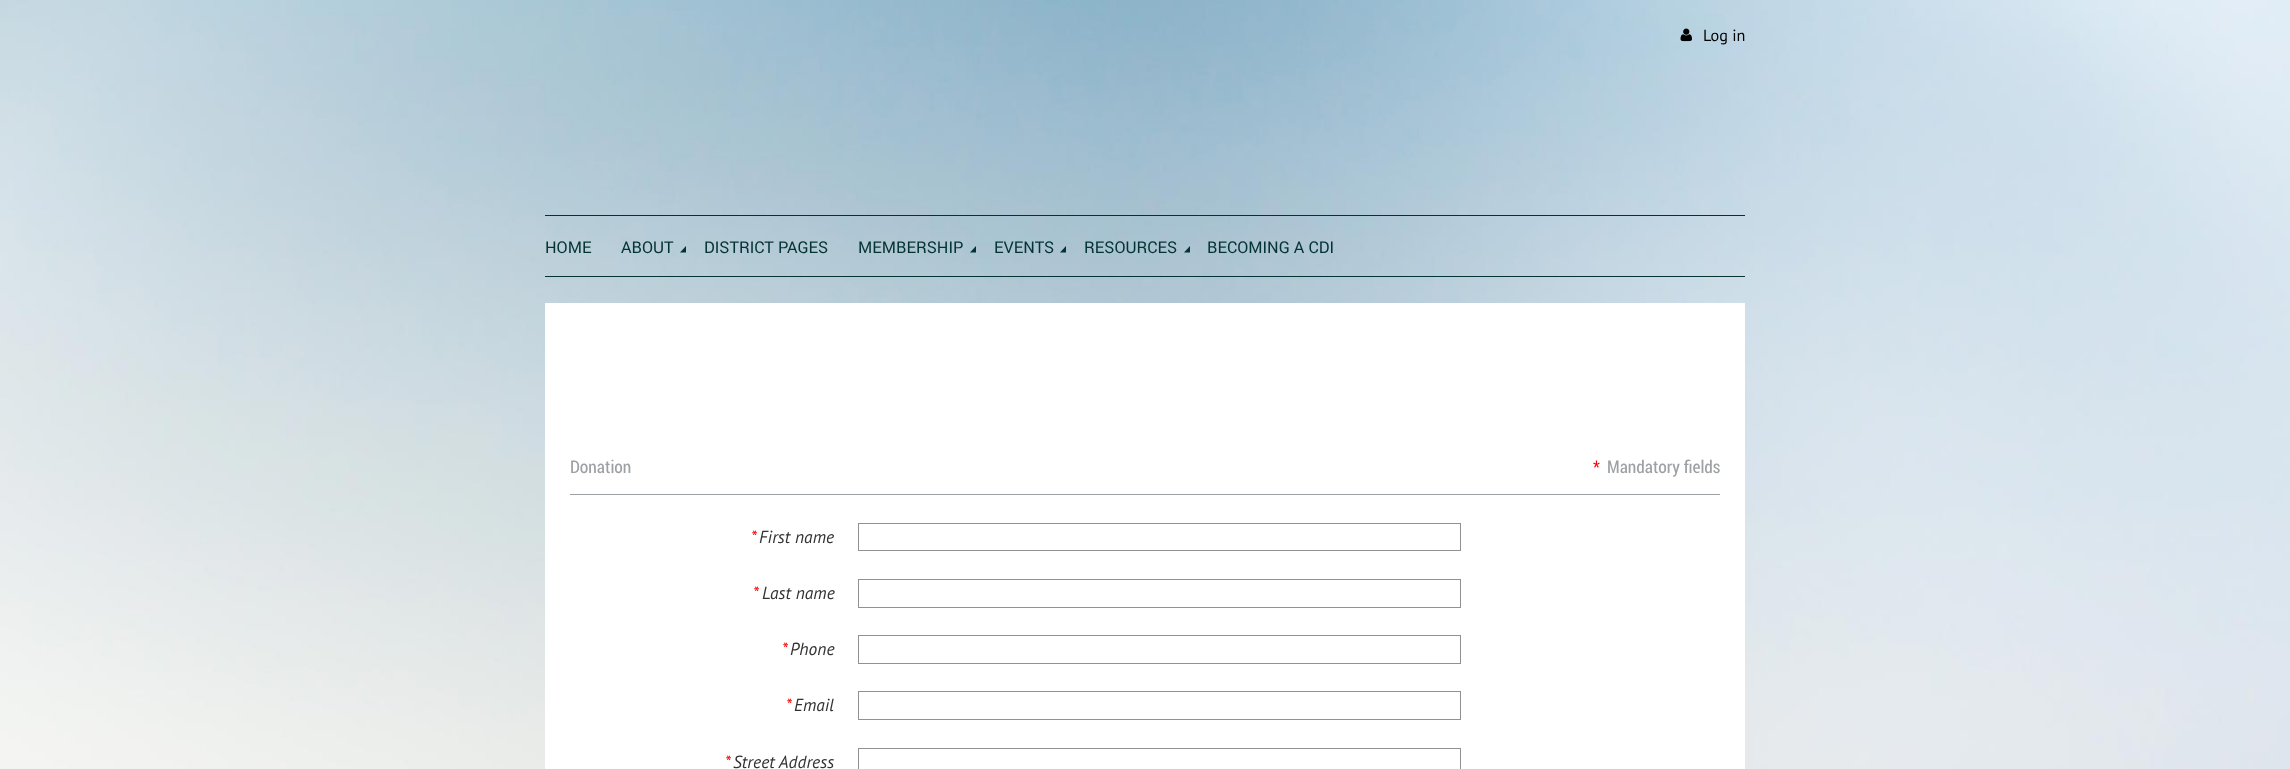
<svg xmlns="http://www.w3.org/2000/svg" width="2290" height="769">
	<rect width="100%" height="100%" fill="#FFFFFF" />
	<image x="0" y="0" width="2290" height="769" href="assets/img1.png" />
	<image x="1680" y="28" width="12" height="14" href="assets/img2.png" />
	<text x="1703" y="41" font-family="PT Sans" font-size="16.25" fill="#000000">Log in</text>
	<rect x="545" y="215" width="1200" height="1" fill="#033333" />
	<rect x="545" y="276" width="1200" height="1" fill="#033333" />
	<g font-family="Roboto" font-size="16.25" fill="#033333">
		<text x="545" y="253">HOME</text>
		<text x="621" y="253">ABOUT</text>
	</g>
	<path d="M686 252.5H680L686 246Z" fill="#033333" />
	<g font-family="Roboto" font-size="16.25" fill="#033333">
		<text x="704" y="253">DISTRICT PAGES</text>
		<text x="858" y="253">MEMBERSHIP</text>
	</g>
	<path d="M976 252.5H970L976 246Z" fill="#033333" />
	<text x="994" y="253" font-family="Roboto" font-size="16.25" fill="#033333">EVENTS</text>
	<path d="M1066 252.5H1060L1066 246Z" fill="#033333" />
	<text x="1084" y="253" font-family="Roboto" font-size="16.25" fill="#033333">RESOURCES</text>
	<path d="M1190 252.5H1184L1190 246Z" fill="#033333" />
	<text x="1207" y="253" font-family="Roboto" font-size="16.25" fill="#033333">BECOMING A CDI</text>
	<rect x="545" y="303" width="1200" height="466" fill="#FFFFFF" />
	<rect x="570" y="494" width="1150" height="1" fill="#9DA1A3" />
	<text x="570" y="473" font-family="Roboto Condensed" font-size="17.5" fill="#9DA1A3">Donation</text>
	<text x="1593" y="473" font-family="Roboto Condensed" font-size="17.5" fill="#FF0000">*</text>
	<text x="1607" y="473" font-family="Roboto Condensed" font-size="17.5" fill="#9DA1A3">Mandatory fields</text>
	<text x="751" y="543" font-family="PT Sans" font-size="17.5" font-style="italic" fill="#FF0000">*</text>
	<text x="759" y="543" font-family="PT Sans" font-size="17.5" font-style="italic" fill="#333333">First name</text>
	<rect x="858.5" y="523.5" width="602" height="27" fill="none" stroke="#919191" />
	<text x="753" y="599" font-family="PT Sans" font-size="17.5" font-style="italic" fill="#FF0000">*</text>
	<text x="762" y="599" font-family="PT Sans" font-size="17.5" font-style="italic" fill="#333333">Last name</text>
	<rect x="858.5" y="579.5" width="602" height="28" fill="none" stroke="#919191" />
	<text x="782" y="655" font-family="PT Sans" font-size="17.5" font-style="italic" fill="#FF0000">*</text>
	<text x="790" y="655" font-family="PT Sans" font-size="17.5" font-style="italic" fill="#333333">Phone</text>
	<rect x="858.5" y="635.5" width="602" height="28" fill="none" stroke="#919191" />
	<text x="786" y="711" font-family="PT Sans" font-size="17.5" font-style="italic" fill="#FF0000">*</text>
	<text x="794" y="711" font-family="PT Sans" font-size="17.5" font-style="italic" fill="#333333">Email</text>
	<rect x="858.5" y="691.5" width="602" height="28" fill="none" stroke="#919191" />
	<text x="725" y="768" font-family="PT Sans" font-size="17.5" font-style="italic" fill="#FF0000">*</text>
	<text x="733" y="768" font-family="PT Sans" font-size="17.5" font-style="italic" fill="#333333">Street Address</text>
	<rect x="858.5" y="748.5" width="602" height="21" fill="none" stroke="#919191" />
</svg>
